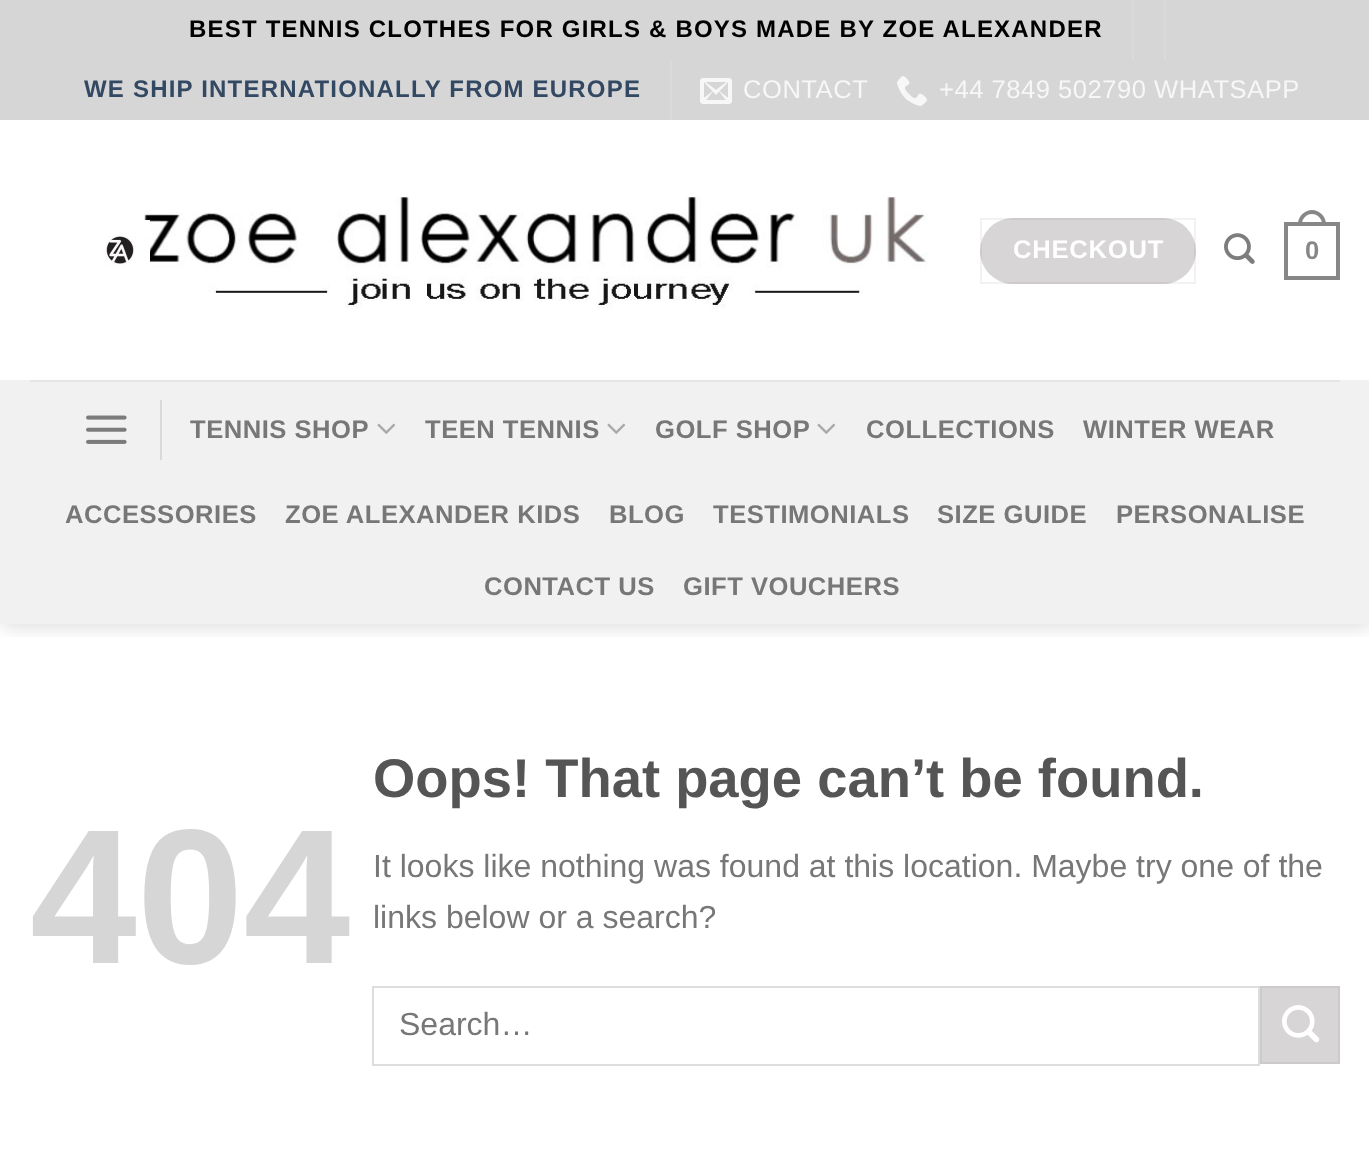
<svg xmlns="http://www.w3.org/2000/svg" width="1369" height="1163">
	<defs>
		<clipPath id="clip1"><rect x="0" y="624" width="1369" height="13" /></clipPath>
	</defs>
	<rect width="100%" height="100%" fill="#FFFFFF" />
	<g clip-path="url(#clip1)">
		<rect x="2" y="2" width="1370" height="624" fill="#000000" fill-opacity="0.15" filter="blur(10px)" />
	</g>
	<rect x="0" y="0" width="1369" height="120" fill="#D6D6D6" />
	<text x="189" y="37" font-family="Liberation Sans" font-size="24" font-weight="700" letter-spacing="1.2" fill="#000000">BEST TENNIS CLOTHES FOR GIRLS &amp; BOYS MADE BY ZOE ALEXANDER</text>
	<rect x="1132" y="0" width="2" height="60" fill="#DADADA" />
	<rect x="1164" y="0" width="2" height="60" fill="#DADADA" />
	<text x="84" y="97" font-family="Liberation Sans" font-size="24" font-weight="700" letter-spacing="1.2" fill="#334862">WE SHIP INTERNATIONALLY FROM EUROPE</text>
	<rect x="670" y="60" width="2" height="60" fill="#DADADA" />
	<image x="700" y="78" width="32" height="26" href="assets/img1.png" />
	<text x="743" y="98" font-family="Liberation Sans" font-size="25.6" letter-spacing="0.5" fill="#F7F7F7">CONTACT</text>
	<image x="897" y="76" width="30" height="30" href="assets/img2.png" />
	<text x="939" y="98" font-family="Liberation Sans" font-size="25.6" letter-spacing="0.5" fill="#F7F7F7">+44 7849 502790 WHATSAPP</text>
	<image x="136" y="196" width="792" height="113" href="assets/img4.png" />
	<image x="106" y="220" width="44" height="48" href="assets/img3.png" />
	<rect x="980" y="218" width="216" height="66" rx="33" fill="#D7D5D5" />
	<rect x="981" y="219" width="214" height="64" fill="none" stroke="#000000" stroke-opacity="0.05" stroke-width="2" />
	<text x="1013" y="258" font-family="Liberation Sans" font-size="25.6" font-weight="700" letter-spacing="0.75" fill="#FFFFFF">CHECKOUT</text>
	<image x="1224" y="233" width="31" height="31" href="assets/img5.png" />
	<rect x="1286" y="224" width="52" height="54" fill="none" stroke="#878787" stroke-width="4" />
	<path d="M1312 210C1319.5 210 1326 216.5 1326 224V226H1298V224C1298 216.5 1304.5 210 1312 210ZM1312 214C1317.5 214 1322 218.5 1322 224V226H1302V224C1302 218.5 1306.5 214 1312 214Z" fill="#878787" fill-rule="evenodd" />
	<text x="1305" y="259" font-family="Liberation Sans" font-size="25.6" font-weight="700" fill="#878787">0</text>
	<rect x="0" y="380" width="1369" height="244" fill="#F1F1F1" />
	<rect x="30" y="380" width="1310" height="2" fill="#E5E5E5" />
	<image x="86" y="415" width="41" height="29" href="assets/img6.png" />
	<rect x="160" y="400" width="2" height="60" fill="#D9D9D9" />
	<text x="190" y="438" font-family="Liberation Sans" font-size="25.6" font-weight="700" letter-spacing="0.5" fill="#777777">TENNIS SHOP</text>
	<image x="377" y="423" width="19" height="11" href="assets/img7.png" />
	<text x="425" y="438" font-family="Liberation Sans" font-size="25.6" font-weight="700" letter-spacing="0.5" fill="#777777">TEEN TENNIS</text>
	<image x="607" y="423" width="19" height="11" href="assets/img7.png" />
	<text x="655" y="438" font-family="Liberation Sans" font-size="25.6" font-weight="700" letter-spacing="0.5" fill="#777777">GOLF SHOP</text>
	<image x="817" y="423" width="19" height="11" href="assets/img7.png" />
	<g font-family="Liberation Sans" font-size="25.6" font-weight="700" letter-spacing="0.5" fill="#777777">
		<text x="866" y="438">COLLECTIONS</text>
		<text x="1083" y="438">WINTER WEAR</text>
		<text x="65" y="523">ACCESSORIES</text>
		<text x="285" y="523">ZOE ALEXANDER KIDS</text>
		<text x="609" y="523">BLOG</text>
		<text x="713" y="523">TESTIMONIALS</text>
		<text x="937" y="523">SIZE GUIDE</text>
		<text x="1116" y="523">PERSONALISE</text>
		<text x="484" y="595">CONTACT US</text>
		<text x="683" y="595">GIFT VOUCHERS</text>
	</g>
	<text x="30" y="963" font-family="Liberation Sans" font-size="192" font-weight="700" fill="#D6D6D6">404</text>
	<text x="373" y="797" font-family="Liberation Sans" font-size="54.4" font-weight="700" fill="#555555">Oops! That page can’t be found.</text>
	<g font-family="Liberation Sans" font-size="32" fill="#777777">
		<text x="373" y="877">It looks like nothing was found at this location. Maybe try one of the</text>
		<text x="373" y="928">links below or a search?</text>
	</g>
	<rect x="373" y="987" width="886" height="78" fill="none" stroke="#DDDDDD" stroke-width="2" />
	<text x="399" y="1035" font-family="Liberation Sans" font-size="32" fill="#777777">Search…</text>
	<rect x="1261" y="987" width="78" height="76" fill="#D7D5D5" stroke="#CCCACA" stroke-width="2" />
	<image x="1282" y="1005" width="38" height="38" href="assets/img8.png" />
</svg>
